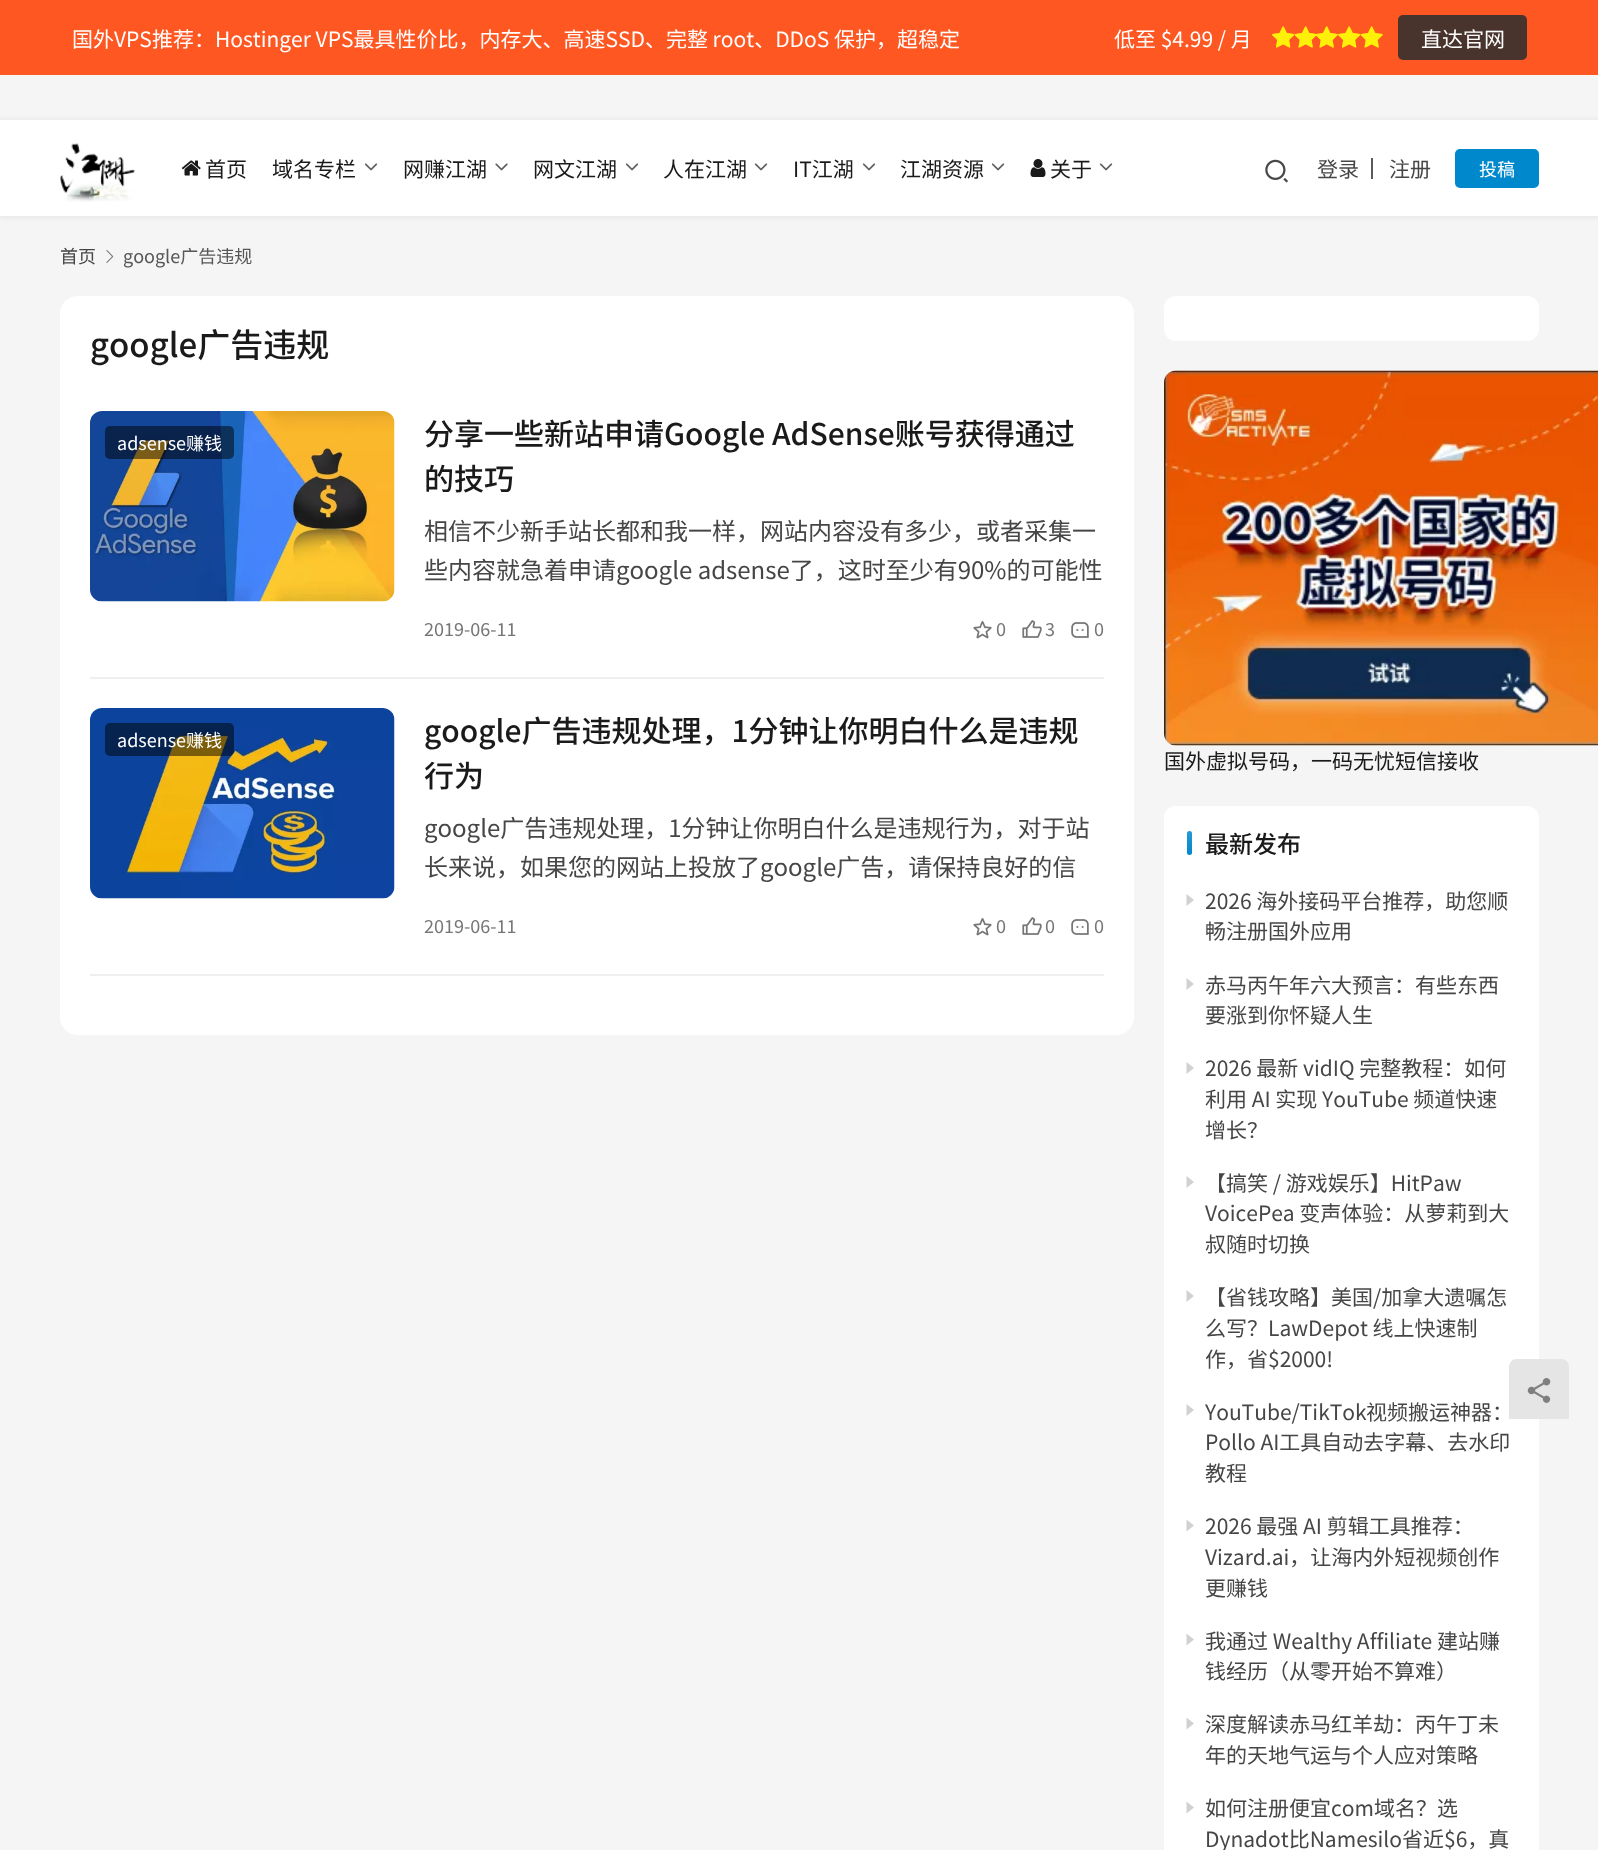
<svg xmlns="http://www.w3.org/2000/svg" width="1598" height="1850">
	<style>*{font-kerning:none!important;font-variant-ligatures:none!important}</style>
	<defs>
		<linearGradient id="g1" gradientUnits="userSpaceOnUse" x1="1189" y1="831" x2="1189" y2="855"><stop offset="0" stop-color="#FFFFFF" stop-opacity="0.15" /><stop offset="1" stop-color="#FFFFFF" stop-opacity="0" /></linearGradient>
	</defs>
	<rect width="100%" height="100%" fill="#F5F5F5" />
	<rect x="0" y="0" width="1598" height="75" fill="#FF5722" />
	<g font-family="Noto Sans CJK SC" font-size="21" fill="#FFFFFF">
		<text x="72" y="47">国外VPS推荐：Hostinger VPS最具性价比，内存大、高速SSD、完整 root、DDoS 保护，超稳定</text>
		<text x="1114" y="47">低至 $4.99 / 月</text>
	</g>
	<image x="1272" y="26" width="23" height="22" href="assets/img1.png" />
	<image x="1294" y="26" width="23" height="22" href="assets/img6.png" />
	<image x="1272" y="26" width="23" height="22" href="assets/img2.png" />
	<image x="1315" y="26" width="23" height="22" href="assets/img7.png" />
	<image x="1294" y="26" width="23" height="22" href="assets/img3.png" />
	<image x="1316" y="26" width="22" height="22" href="assets/img4.png" />
	<image x="1338" y="26" width="23" height="22" href="assets/img1.png" />
	<image x="1360" y="26" width="23" height="22" href="assets/img6.png" />
	<image x="1338" y="26" width="23" height="22" href="assets/img2.png" />
	<image x="1360" y="26" width="23" height="22" href="assets/img5.png" />
	<rect x="1398" y="15" width="129" height="45" rx="5" fill="#48342C" />
	<text x="1421" y="47" font-family="Noto Sans CJK SC" font-size="21" fill="#FFFFFF">直达官网</text>
	<rect x="-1" y="119" width="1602" height="99" fill="#1A1A1A" fill-opacity="0.06" filter="blur(2px)" />
	<rect x="0" y="120" width="1598" height="96" fill="#FFFFFF" />
	<image x="60" y="143" width="75" height="59" href="assets/img8.png" />
	<image x="181" y="160" width="20" height="16" href="assets/img9.png" />
	<g font-family="Noto Sans CJK SC" font-size="21" fill="#1A1A1A">
		<text x="205" y="177">首页</text>
		<text x="272" y="177">域名专栏</text>
	</g>
	<image x="364" y="163" width="14" height="8" href="assets/img10.png" />
	<text x="403" y="177" font-family="Noto Sans CJK SC" font-size="21" fill="#1A1A1A">网赚江湖</text>
	<image x="495" y="163" width="13" height="8" href="assets/img11.png" />
	<text x="533" y="177" font-family="Noto Sans CJK SC" font-size="21" fill="#1A1A1A">网文江湖</text>
	<image x="625" y="163" width="14" height="8" href="assets/img10.png" />
	<text x="663" y="177" font-family="Noto Sans CJK SC" font-size="21" fill="#1A1A1A">人在江湖</text>
	<image x="754" y="163" width="14" height="8" href="assets/img10.png" />
	<text x="793" y="177" font-family="Noto Sans CJK SC" font-size="21" fill="#1A1A1A">IT江湖</text>
	<image x="862" y="163" width="14" height="8" href="assets/img10.png" />
	<text x="900" y="177" font-family="Noto Sans CJK SC" font-size="21" fill="#1A1A1A">江湖资源</text>
	<image x="991" y="163" width="14" height="8" href="assets/img10.png" />
	<image x="1030" y="159" width="16" height="18" href="assets/img12.png" />
	<text x="1050" y="177" font-family="Noto Sans CJK SC" font-size="21" fill="#1A1A1A">关于</text>
	<image x="1099" y="163" width="14" height="8" href="assets/img10.png" />
	<image x="1265" y="159" width="23" height="24" href="assets/img13.png" />
	<text x="1317" y="177" font-family="Noto Sans CJK SC" font-size="21" fill="#464646">登录</text>
	<rect x="1371" y="158" width="2" height="21" fill="#5A5A5A" />
	<text x="1389" y="177" font-family="Noto Sans CJK SC" font-size="21" fill="#464646">注册</text>
	<rect x="1456" y="150" width="82" height="37" rx="4" fill="#0088CC" stroke="#0088CC" stroke-width="2" />
	<text x="1479" y="176" font-family="Noto Sans CJK SC" font-size="18" fill="#FFFFFF">投稿</text>
	<text x="60" y="263" font-family="Noto Sans CJK SC" font-size="18" fill="#464646">首页</text>
	<image x="106" y="250" width="8" height="13" href="assets/img14.png" />
	<text x="123" y="263" font-family="Noto Sans CJK SC" font-size="18" fill="#575757">google广告违规</text>
	<rect x="60" y="296" width="1074" height="739" rx="18" fill="#FFFFFF" />
	<text x="90" y="357" font-family="Noto Sans CJK SC" font-size="33" font-weight="500" fill="#1A1A1A">google广告违规</text>
	<rect x="90" y="677" width="1014" height="2" fill="#EFEFEF" />
	<image x="90" y="411" width="305" height="191" href="assets/img15.png" />
	<rect x="105" y="426" width="129" height="33" rx="5" fill="#000000" fill-opacity="0.5" />
	<text x="117" y="450" font-family="Noto Sans CJK SC" font-size="18" fill="#FFFFFF">adsense赚钱</text>
	<g font-family="Noto Sans CJK SC" font-size="30" font-weight="500" fill="#1A1A1A">
		<text x="424" y="445">分享一些新站申请Google AdSense账号获得通过</text>
		<text x="424" y="490">的技巧</text>
	</g>
	<g font-family="Noto Sans CJK SC" font-size="24" fill="#464646">
		<text x="424" y="540">相信不少新手站长都和我一样，网站内容没有多少，或者采集一</text>
		<text x="424" y="579">些内容就急着申请google adsense了，这时至少有90%的可能性</text>
	</g>
	<text x="424" y="636" font-family="Noto Sans CJK SC" font-size="18" fill="#767676">2019-06-11</text>
	<image x="973" y="621" width="19" height="18" href="assets/img16.png" />
	<text x="996" y="636" font-family="Noto Sans CJK SC" font-size="18" fill="#767676">0</text>
	<image x="1022" y="620" width="20" height="18" href="assets/img17.png" />
	<text x="1045" y="636" font-family="Noto Sans CJK SC" font-size="18" fill="#767676">3</text>
	<image x="1071" y="622" width="18" height="16" href="assets/img18.png" />
	<text x="1094" y="636" font-family="Noto Sans CJK SC" font-size="18" fill="#767676">0</text>
	<rect x="90" y="974" width="1014" height="2" fill="#EFEFEF" />
	<image x="90" y="708" width="305" height="191" href="assets/img19.png" />
	<rect x="105" y="723" width="129" height="33" rx="5" fill="#000000" fill-opacity="0.5" />
	<text x="117" y="747" font-family="Noto Sans CJK SC" font-size="18" fill="#FFFFFF">adsense赚钱</text>
	<g font-family="Noto Sans CJK SC" font-size="30" font-weight="500" fill="#1A1A1A">
		<text x="424" y="742">google广告违规处理，1分钟让你明白什么是违规</text>
		<text x="424" y="787">行为</text>
	</g>
	<g font-family="Noto Sans CJK SC" font-size="24" fill="#464646">
		<text x="424" y="837">google广告违规处理，1分钟让你明白什么是违规行为，对于站</text>
		<text x="424" y="876">长来说，如果您的网站上投放了google广告，请保持良好的信</text>
	</g>
	<text x="424" y="933" font-family="Noto Sans CJK SC" font-size="18" fill="#767676">2019-06-11</text>
	<image x="973" y="918" width="19" height="18" href="assets/img16.png" />
	<text x="996" y="933" font-family="Noto Sans CJK SC" font-size="18" fill="#767676">0</text>
	<image x="1022" y="917" width="20" height="18" href="assets/img17.png" />
	<text x="1045" y="933" font-family="Noto Sans CJK SC" font-size="18" fill="#767676">0</text>
	<image x="1071" y="919" width="18" height="16" href="assets/img18.png" />
	<text x="1094" y="933" font-family="Noto Sans CJK SC" font-size="18" fill="#767676">0</text>
	<rect x="1164" y="296" width="375" height="45" rx="12" fill="#FFFFFF" />
	<image x="1164" y="370" width="434" height="376" href="assets/img20.png" />
	<text x="1164" y="769" font-family="Noto Sans CJK SC" font-size="21" fill="#1A1A1A">国外虚拟号码，一码无忧短信接收</text>
	<rect x="1164" y="806" width="375" height="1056" rx="12" fill="#FFFFFF" />
	<rect x="1187" y="831" width="5" height="24" rx="2.5" fill="#0088CC" />
	<rect x="1187" y="831" width="5" height="24" rx="2.5" fill="url(#g1)" />
	<text x="1205" y="853" font-family="Noto Sans CJK SC" font-size="24" font-weight="500" fill="#1A1A1A">最新发布</text>
	<path d="M1186.5 906V894L1194 900Z" fill="#D1D1D1" />
	<g font-family="Noto Sans CJK SC" font-size="21" fill="#464646">
		<text x="1205" y="909">2026 海外接码平台推荐，助您顺</text>
		<text x="1205" y="939">畅注册国外应用</text>
	</g>
	<path d="M1186.5 990V978L1194 984Z" fill="#D1D1D1" />
	<g font-family="Noto Sans CJK SC" font-size="21" fill="#464646">
		<text x="1205" y="993">赤马丙午年六大预言：有些东西</text>
		<text x="1205" y="1023">要涨到你怀疑人生</text>
	</g>
	<path d="M1186.5 1074V1062L1194 1068Z" fill="#D1D1D1" />
	<g font-family="Noto Sans CJK SC" font-size="21" fill="#464646">
		<text x="1205" y="1076">2026 最新 vidIQ 完整教程：如何</text>
		<text x="1205" y="1107">利用 AI 实现 YouTube 频道快速</text>
		<text x="1205" y="1138">增长？</text>
	</g>
	<path d="M1186.5 1188V1176L1194 1182Z" fill="#D1D1D1" />
	<g font-family="Noto Sans CJK SC" font-size="21" fill="#464646">
		<text x="1205" y="1191">【搞笑 / 游戏娱乐】HitPaw</text>
		<text x="1205" y="1221">VoicePea 变声体验：从萝莉到大</text>
		<text x="1205" y="1252">叔随时切换</text>
	</g>
	<path d="M1186.5 1302V1290L1194 1296Z" fill="#D1D1D1" />
	<g font-family="Noto Sans CJK SC" font-size="21" fill="#464646">
		<text x="1205" y="1305">【省钱攻略】美国/加拿大遗嘱怎</text>
		<text x="1205" y="1336">么写？LawDepot 线上快速制</text>
		<text x="1205" y="1367">作，省$2000!</text>
	</g>
	<path d="M1186.5 1416V1404L1194 1410Z" fill="#D1D1D1" />
	<g font-family="Noto Sans CJK SC" font-size="21" fill="#464646">
		<text x="1205" y="1420">YouTube/TikTok</text>
		<text x="1366" y="1420">视频搬运神器：</text>
		<text x="1205" y="1450">Pollo AI工具自动去字幕、去水印</text>
		<text x="1205" y="1481">教程</text>
	</g>
	<path d="M1186.5 1531.5V1519.5L1194 1525.5Z" fill="#D1D1D1" />
	<g font-family="Noto Sans CJK SC" font-size="21" fill="#464646">
		<text x="1205" y="1534">2026 最强 AI 剪辑工具推荐：</text>
		<text x="1205" y="1565">Vizard.ai，让海内外短视频创作</text>
		<text x="1205" y="1596">更赚钱</text>
	</g>
	<path d="M1186.5 1645.5V1633.5L1194 1639.5Z" fill="#D1D1D1" />
	<g font-family="Noto Sans CJK SC" font-size="21" fill="#464646">
		<text x="1205" y="1649">我通过 Wealthy Affiliate 建站赚</text>
		<text x="1205" y="1679">钱经历（从零开始不算难）</text>
	</g>
	<path d="M1186.5 1729.5V1717.5L1194 1723.5Z" fill="#D1D1D1" />
	<g font-family="Noto Sans CJK SC" font-size="21" fill="#464646">
		<text x="1205" y="1732">深度解读赤马红羊劫：丙午丁未</text>
		<text x="1205" y="1763">年的天地气运与个人应对策略</text>
	</g>
	<path d="M1186.5 1813.5V1801.5L1194 1807.5Z" fill="#D1D1D1" />
	<g font-family="Noto Sans CJK SC" font-size="21" fill="#464646">
		<text x="1205" y="1816">如何注册便宜com域名？选</text>
		<text x="1205" y="1847">Dynadot比Namesilo省近$6，真</text>
	</g>
	<path d="M1517 1359H1561C1565.5 1359 1569 1362.5 1569 1367V1419H1509V1367C1509 1362.5 1512.5 1359 1517 1359Z" fill="#F5F5F5" />
	<path d="M1517 1359H1561C1565.5 1359 1569 1362.5 1569 1367V1419H1509V1367C1509 1362.5 1512.5 1359 1517 1359Z" fill="#1A1A1A" fill-opacity="0.07" />
	<image x="1527" y="1378" width="24" height="25" href="assets/img21.png" />
</svg>
